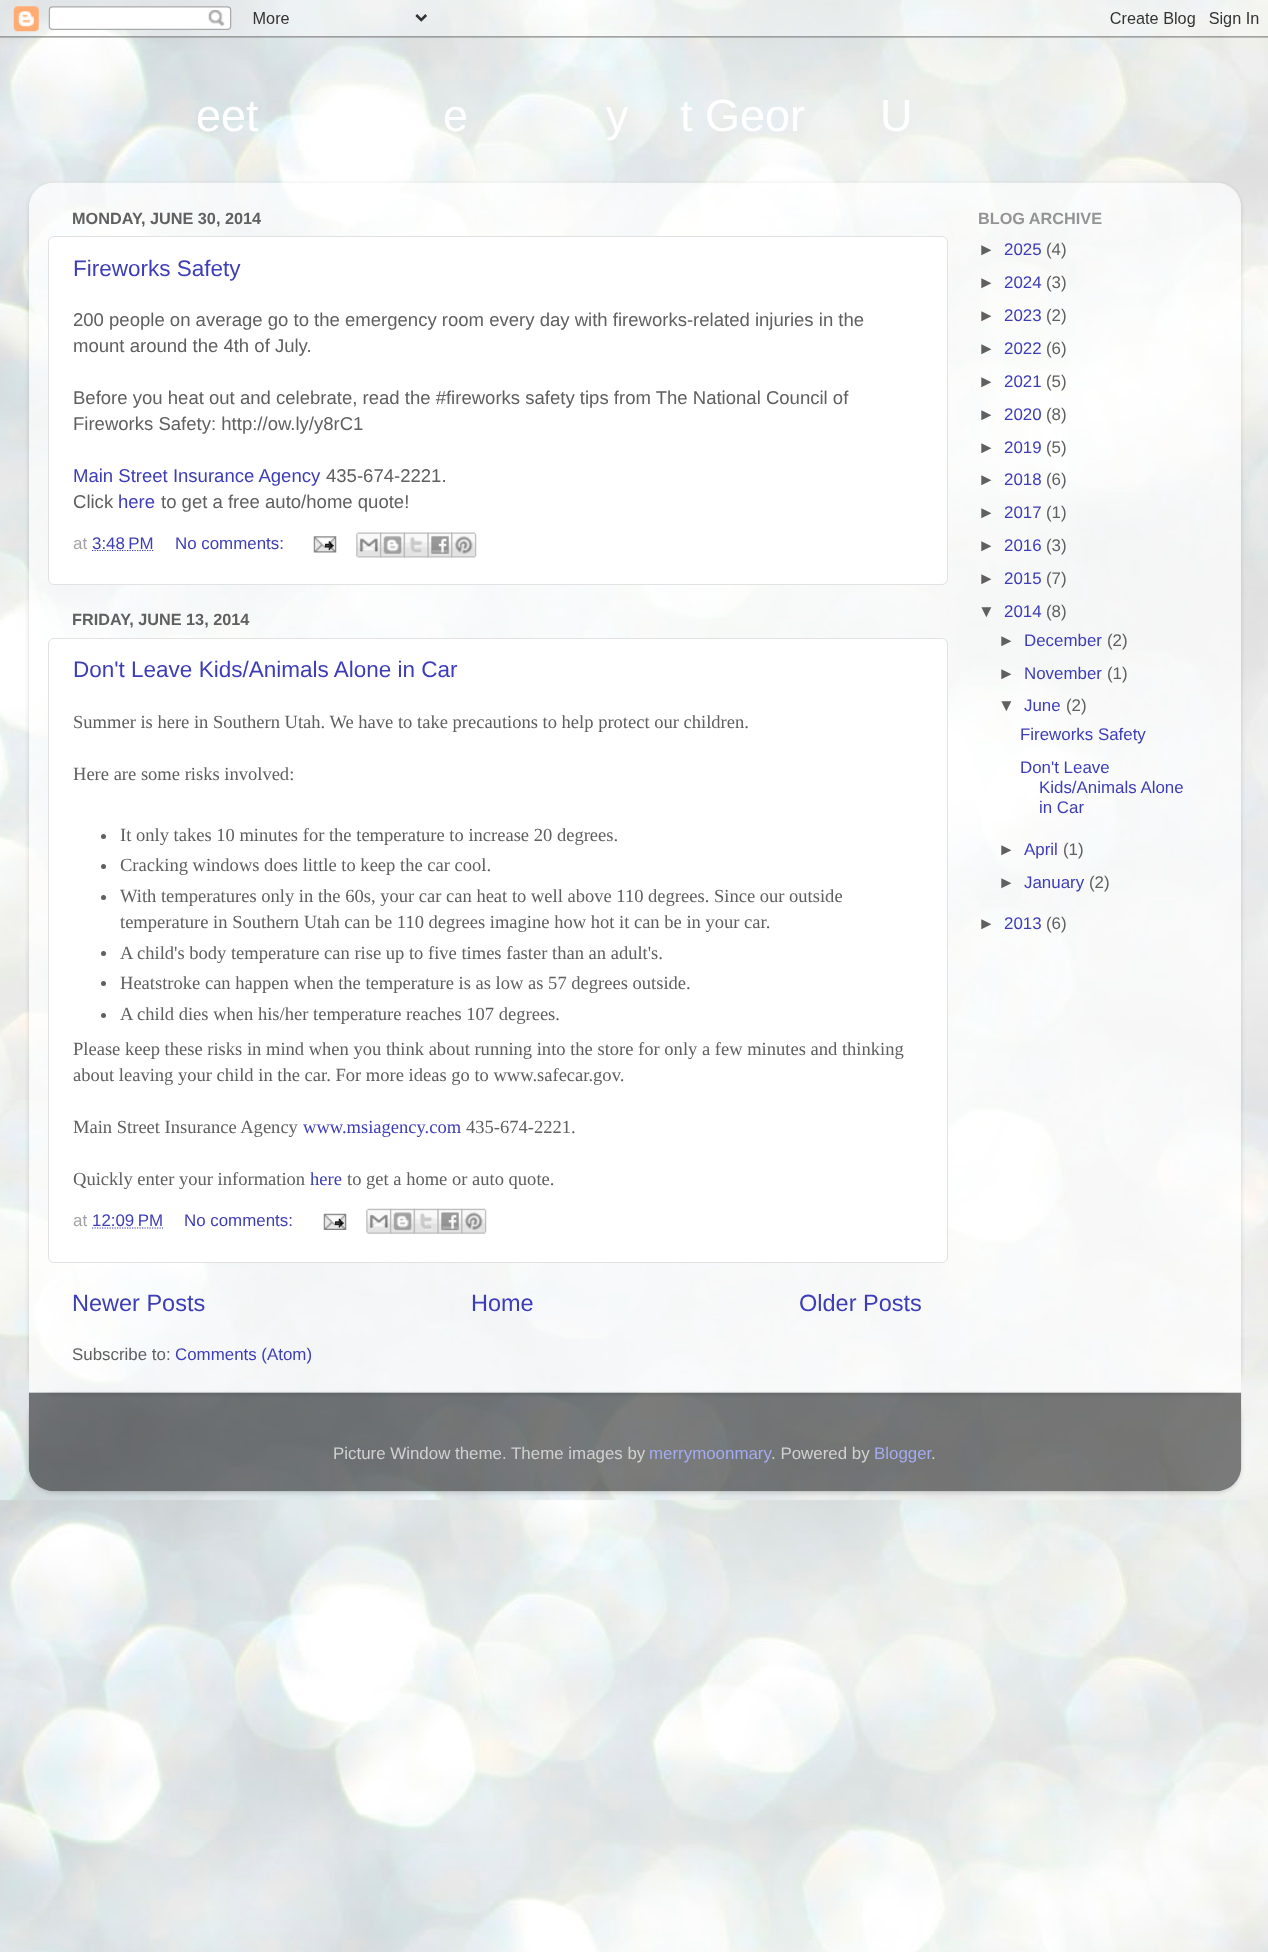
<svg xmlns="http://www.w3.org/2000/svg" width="1268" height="1952">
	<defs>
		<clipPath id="clip1"><path d="M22 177H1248V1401H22ZM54 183H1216C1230 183 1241 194 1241 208V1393H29V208C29 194 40 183 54 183Z" clip-rule="evenodd" /></clipPath>
		<clipPath id="clip2"><path d="M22 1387H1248V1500H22ZM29 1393H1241V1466C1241 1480 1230 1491 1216 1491H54C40 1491 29 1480 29 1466Z" clip-rule="evenodd" /></clipPath>
	</defs>
	<rect width="100%" height="100%" fill="#FFFFFF" />
	<image x="0" y="0" width="1268" height="1952" href="assets/img1.png" />
	<image x="0" y="0" width="1268" height="38" href="assets/img2.png" />
	<g font-family="Liberation Sans" font-size="45" fill="#FFFFFF">
		<text x="196" y="131">eet</text>
		<text x="443" y="131">e</text>
		<text x="606" y="131">y</text>
		<text x="680" y="131">t Geor</text>
		<text x="880" y="131">U</text>
	</g>
	<g clip-path="url(#clip1)">
		<rect x="29" y="184" width="1212" height="1210" rx="25" fill="#000000" fill-opacity="0.15" filter="blur(2px)" />
	</g>
	<image x="29" y="182" width="1212" height="1211" href="assets/img3.png" />
	<text x="72" y="224" font-family="Liberation Sans" font-size="16.25" font-weight="700" fill="#606060">MONDAY, JUNE 30, 2014</text>
	<rect x="48.5" y="236.5" width="899" height="348" rx="5.5" fill="#FFFFFF" stroke="#E2E2E2" />
	<text x="73" y="276" font-family="Liberation Sans" font-size="22.5" fill="#3D3DB7">Fireworks Safety</text>
	<g font-family="Liberation Sans" font-size="18.55" fill="#606060">
		<text x="73" y="326">200 people on average go to the emergency room every day with fireworks-related injuries in the</text>
		<text x="73" y="352">mount around the 4th of July.</text>
		<text x="73" y="404">Before you heat out and celebrate, read the #fireworks safety tips from The National Council of</text>
		<text x="73" y="430">Fireworks Safety: http://ow.ly/y8rC1</text>
	</g>
	<text x="73" y="482" font-family="Liberation Sans" font-size="18.55" fill="#3D3DB7">Main Street Insurance Agency</text>
	<g font-family="Liberation Sans" font-size="18.55" fill="#606060">
		<text x="326" y="482">435-674-2221.</text>
		<text x="73" y="508">Click</text>
	</g>
	<text x="118" y="508" font-family="Liberation Sans" font-size="18.55" fill="#3D3DB7">here</text>
	<text x="161" y="508" font-family="Liberation Sans" font-size="18.55" fill="#606060">to get a free auto/home quote!</text>
	<text x="73" y="549" font-family="Liberation Sans" font-size="16.9" fill="#A3A3A3">at</text>
	<path d="M92 550.5H153.5" fill="none" stroke="#3D3DB7" stroke-width="1.2" stroke-dasharray="1.25 1.25" />
	<g font-family="Liberation Sans" font-size="16.9" fill="#3D3DB7">
		<text x="92" y="549">3:48 PM</text>
		<text x="175" y="549">No comments:</text>
	</g>
	<image x="313" y="536" width="24" height="17" href="assets/img4.png" />
	<image x="356" y="532" width="26" height="26" href="assets/img5.png" />
	<image x="380" y="532" width="25" height="26" href="assets/img6.png" />
	<image x="403" y="532" width="26" height="26" href="assets/img7.png" />
	<image x="427" y="532" width="26" height="26" href="assets/img8.png" />
	<image x="451" y="532" width="26" height="26" href="assets/img9.png" />
	<text x="72" y="625" font-family="Liberation Sans" font-size="16.25" font-weight="700" fill="#606060">FRIDAY, JUNE 13, 2014</text>
	<rect x="48.5" y="638.5" width="899" height="624" rx="5.5" fill="#FFFFFF" stroke="#E2E2E2" />
	<text x="73" y="677" font-family="Liberation Sans" font-size="22.5" fill="#3D3DB7">Don't Leave Kids/Animals Alone in Car</text>
	<g font-family="Liberation Serif" font-size="18.55" fill="#606060">
		<text x="73" y="728">Summer is here in Southern Utah. We have to take precautions to help protect our children.</text>
		<text x="73" y="780">Here are some risks involved:</text>
	</g>
	<circle cx="103.5" cy="836.5" r="2.5" fill="#606060" />
	<text x="120" y="841" font-family="Liberation Serif" font-size="18.55" fill="#606060">It only takes 10 minutes for the temperature to increase 20 degrees.</text>
	<circle cx="103.5" cy="866.5" r="2.5" fill="#606060" />
	<text x="120" y="871" font-family="Liberation Serif" font-size="18.55" fill="#606060">Cracking windows does little to keep the car cool.</text>
	<circle cx="103.5" cy="897.5" r="2.5" fill="#606060" />
	<g font-family="Liberation Serif" font-size="18.55" fill="#606060">
		<text x="120" y="902">With temperatures only in the 60s, your car can heat to well above 110 degrees. Since our outside</text>
		<text x="120" y="928">temperature in Southern Utah can be 110 degrees imagine how hot it can be in your car.</text>
	</g>
	<circle cx="103.5" cy="953.5" r="2.5" fill="#606060" />
	<text x="120" y="959" font-family="Liberation Serif" font-size="18.55" fill="#606060">A child's body temperature can rise up to five times faster than an adult's.</text>
	<circle cx="103.5" cy="983.5" r="2.5" fill="#606060" />
	<text x="120" y="989" font-family="Liberation Serif" font-size="18.55" fill="#606060">Heatstroke can happen when the temperature is as low as 57 degrees outside.</text>
	<circle cx="103.5" cy="1015.5" r="2.5" fill="#606060" />
	<g font-family="Liberation Serif" font-size="18.55" fill="#606060">
		<text x="120" y="1020">A child dies when his/her temperature reaches 107 degrees.</text>
		<text x="73" y="1055">Please keep these risks in mind when you think about running into the store for only a few minutes and thinking</text>
		<text x="73" y="1081">about leaving your child in the car. For more ideas go to www.safecar.gov.</text>
		<text x="73" y="1133">Main Street Insurance Agency</text>
	</g>
	<text x="303" y="1133" font-family="Liberation Serif" font-size="18.55" fill="#3D3DB7">www.msiagency.com</text>
	<g font-family="Liberation Serif" font-size="18.55" fill="#606060">
		<text x="466" y="1133">435-674-2221.</text>
		<text x="73" y="1185">Quickly enter your information</text>
	</g>
	<text x="310" y="1185" font-family="Liberation Serif" font-size="18.55" fill="#3D3DB7">here</text>
	<text x="347" y="1185" font-family="Liberation Serif" font-size="18.55" fill="#606060">to get a home or auto quote.</text>
	<text x="73" y="1226" font-family="Liberation Sans" font-size="16.9" fill="#A3A3A3">at</text>
	<text x="92" y="1226" font-family="Liberation Sans" font-size="16.9" fill="#3D3DB7">12:09 PM</text>
	<path d="M92 1228H163" fill="none" stroke="#3D3DB7" stroke-width="1.2" stroke-dasharray="1.25 1.25" />
	<text x="184" y="1226" font-family="Liberation Sans" font-size="16.9" fill="#3D3DB7">No comments:</text>
	<image x="323" y="1213" width="24" height="17" href="assets/img10.png" />
	<image x="366" y="1208" width="26" height="26" href="assets/img11.png" />
	<image x="390" y="1208" width="25" height="26" href="assets/img12.png" />
	<image x="413" y="1208" width="26" height="26" href="assets/img13.png" />
	<image x="437" y="1208" width="26" height="26" href="assets/img14.png" />
	<image x="461" y="1208" width="26" height="26" href="assets/img15.png" />
	<g font-family="Liberation Sans" font-size="23.5" fill="#3D3DB7">
		<text x="72" y="1311">Newer Posts</text>
		<text x="471" y="1311">Home</text>
		<text x="799" y="1311">Older Posts</text>
	</g>
	<text x="72" y="1360" font-family="Liberation Sans" font-size="16.9" fill="#606060">Subscribe to:</text>
	<text x="175" y="1360" font-family="Liberation Sans" font-size="16.9" fill="#3D3DB7">Comments (Atom)</text>
	<text x="978" y="224" font-family="Liberation Sans" font-size="16.25" font-weight="700" fill="#949494">BLOG ARCHIVE</text>
	<text x="978" y="255" font-family="Liberation Sans" font-size="16.9" fill="#606060">►</text>
	<text x="1004" y="255" font-family="Liberation Sans" font-size="16.9" fill="#3D3DB7">2025</text>
	<g font-family="Liberation Sans" font-size="16.9" fill="#606060">
		<text x="1046" y="255">(4)</text>
		<text x="978" y="288">►</text>
	</g>
	<text x="1004" y="288" font-family="Liberation Sans" font-size="16.9" fill="#3D3DB7">2024</text>
	<g font-family="Liberation Sans" font-size="16.9" fill="#606060">
		<text x="1046" y="288">(3)</text>
		<text x="978" y="321">►</text>
	</g>
	<text x="1004" y="321" font-family="Liberation Sans" font-size="16.9" fill="#3D3DB7">2023</text>
	<g font-family="Liberation Sans" font-size="16.9" fill="#606060">
		<text x="1046" y="321">(2)</text>
		<text x="978" y="354">►</text>
	</g>
	<text x="1004" y="354" font-family="Liberation Sans" font-size="16.9" fill="#3D3DB7">2022</text>
	<g font-family="Liberation Sans" font-size="16.9" fill="#606060">
		<text x="1046" y="354">(6)</text>
		<text x="978" y="387">►</text>
	</g>
	<text x="1004" y="387" font-family="Liberation Sans" font-size="16.9" fill="#3D3DB7">2021</text>
	<g font-family="Liberation Sans" font-size="16.9" fill="#606060">
		<text x="1046" y="387">(5)</text>
		<text x="978" y="420">►</text>
	</g>
	<text x="1004" y="420" font-family="Liberation Sans" font-size="16.9" fill="#3D3DB7">2020</text>
	<g font-family="Liberation Sans" font-size="16.9" fill="#606060">
		<text x="1046" y="420">(8)</text>
		<text x="978" y="453">►</text>
	</g>
	<text x="1004" y="453" font-family="Liberation Sans" font-size="16.9" fill="#3D3DB7">2019</text>
	<g font-family="Liberation Sans" font-size="16.9" fill="#606060">
		<text x="1046" y="453">(5)</text>
		<text x="978" y="485">►</text>
	</g>
	<text x="1004" y="485" font-family="Liberation Sans" font-size="16.9" fill="#3D3DB7">2018</text>
	<g font-family="Liberation Sans" font-size="16.9" fill="#606060">
		<text x="1046" y="485">(6)</text>
		<text x="978" y="518">►</text>
	</g>
	<text x="1004" y="518" font-family="Liberation Sans" font-size="16.9" fill="#3D3DB7">2017</text>
	<g font-family="Liberation Sans" font-size="16.9" fill="#606060">
		<text x="1046" y="518">(1)</text>
		<text x="978" y="551">►</text>
	</g>
	<text x="1004" y="551" font-family="Liberation Sans" font-size="16.9" fill="#3D3DB7">2016</text>
	<g font-family="Liberation Sans" font-size="16.9" fill="#606060">
		<text x="1046" y="551">(3)</text>
		<text x="978" y="584">►</text>
	</g>
	<text x="1004" y="584" font-family="Liberation Sans" font-size="16.9" fill="#3D3DB7">2015</text>
	<g font-family="Liberation Sans" font-size="16.9" fill="#606060">
		<text x="1046" y="584">(7)</text>
		<text x="978" y="617">▼</text>
	</g>
	<text x="1004" y="617" font-family="Liberation Sans" font-size="16.9" fill="#3D3DB7">2014</text>
	<g font-family="Liberation Sans" font-size="16.9" fill="#606060">
		<text x="1046" y="617">(8)</text>
		<text x="998" y="646">►</text>
	</g>
	<text x="1024" y="646" font-family="Liberation Sans" font-size="16.9" fill="#3D3DB7">December</text>
	<g font-family="Liberation Sans" font-size="16.9" fill="#606060">
		<text x="1107" y="646">(2)</text>
		<text x="998" y="679">►</text>
	</g>
	<text x="1024" y="679" font-family="Liberation Sans" font-size="16.9" fill="#3D3DB7">November</text>
	<g font-family="Liberation Sans" font-size="16.9" fill="#606060">
		<text x="1107" y="679">(1)</text>
		<text x="998" y="711">▼</text>
	</g>
	<text x="1024" y="711" font-family="Liberation Sans" font-size="16.9" fill="#3D3DB7">June</text>
	<text x="1066" y="711" font-family="Liberation Sans" font-size="16.9" fill="#606060">(2)</text>
	<g font-family="Liberation Sans" font-size="16.9" fill="#3D3DB7">
		<text x="1020" y="740">Fireworks Safety</text>
		<text x="1020" y="773">Don't Leave</text>
		<text x="1039" y="793">Kids/Animals Alone</text>
		<text x="1039" y="813">in Car</text>
	</g>
	<text x="998" y="855" font-family="Liberation Sans" font-size="16.9" fill="#606060">►</text>
	<text x="1024" y="855" font-family="Liberation Sans" font-size="16.9" fill="#3D3DB7">April</text>
	<g font-family="Liberation Sans" font-size="16.9" fill="#606060">
		<text x="1063" y="855">(1)</text>
		<text x="998" y="888">►</text>
	</g>
	<text x="1024" y="888" font-family="Liberation Sans" font-size="16.9" fill="#3D3DB7">January</text>
	<g font-family="Liberation Sans" font-size="16.9" fill="#606060">
		<text x="1089" y="888">(2)</text>
		<text x="978" y="929">►</text>
	</g>
	<text x="1004" y="929" font-family="Liberation Sans" font-size="16.9" fill="#3D3DB7">2013</text>
	<text x="1046" y="929" font-family="Liberation Sans" font-size="16.9" fill="#606060">(6)</text>
	<g clip-path="url(#clip2)">
		<rect x="29" y="1394" width="1212" height="99" rx="25" fill="#000000" fill-opacity="0.15" filter="blur(2px)" />
	</g>
	<image x="28" y="1392" width="1214" height="100" href="assets/img16.png" />
	<text x="333" y="1459" font-family="Liberation Sans" font-size="16.9" fill="#D1D1D1">Picture Window theme. Theme images by</text>
	<text x="649" y="1459" font-family="Liberation Sans" font-size="16.9" fill="#A4ABEF">merrymoonmary</text>
	<text x="771" y="1459" font-family="Liberation Sans" font-size="16.9" fill="#D1D1D1">. Powered by</text>
	<text x="874" y="1459" font-family="Liberation Sans" font-size="16.9" fill="#A4ABEF">Blogger</text>
	<text x="931" y="1459" font-family="Liberation Sans" font-size="16.9" fill="#D1D1D1">.</text>
</svg>
